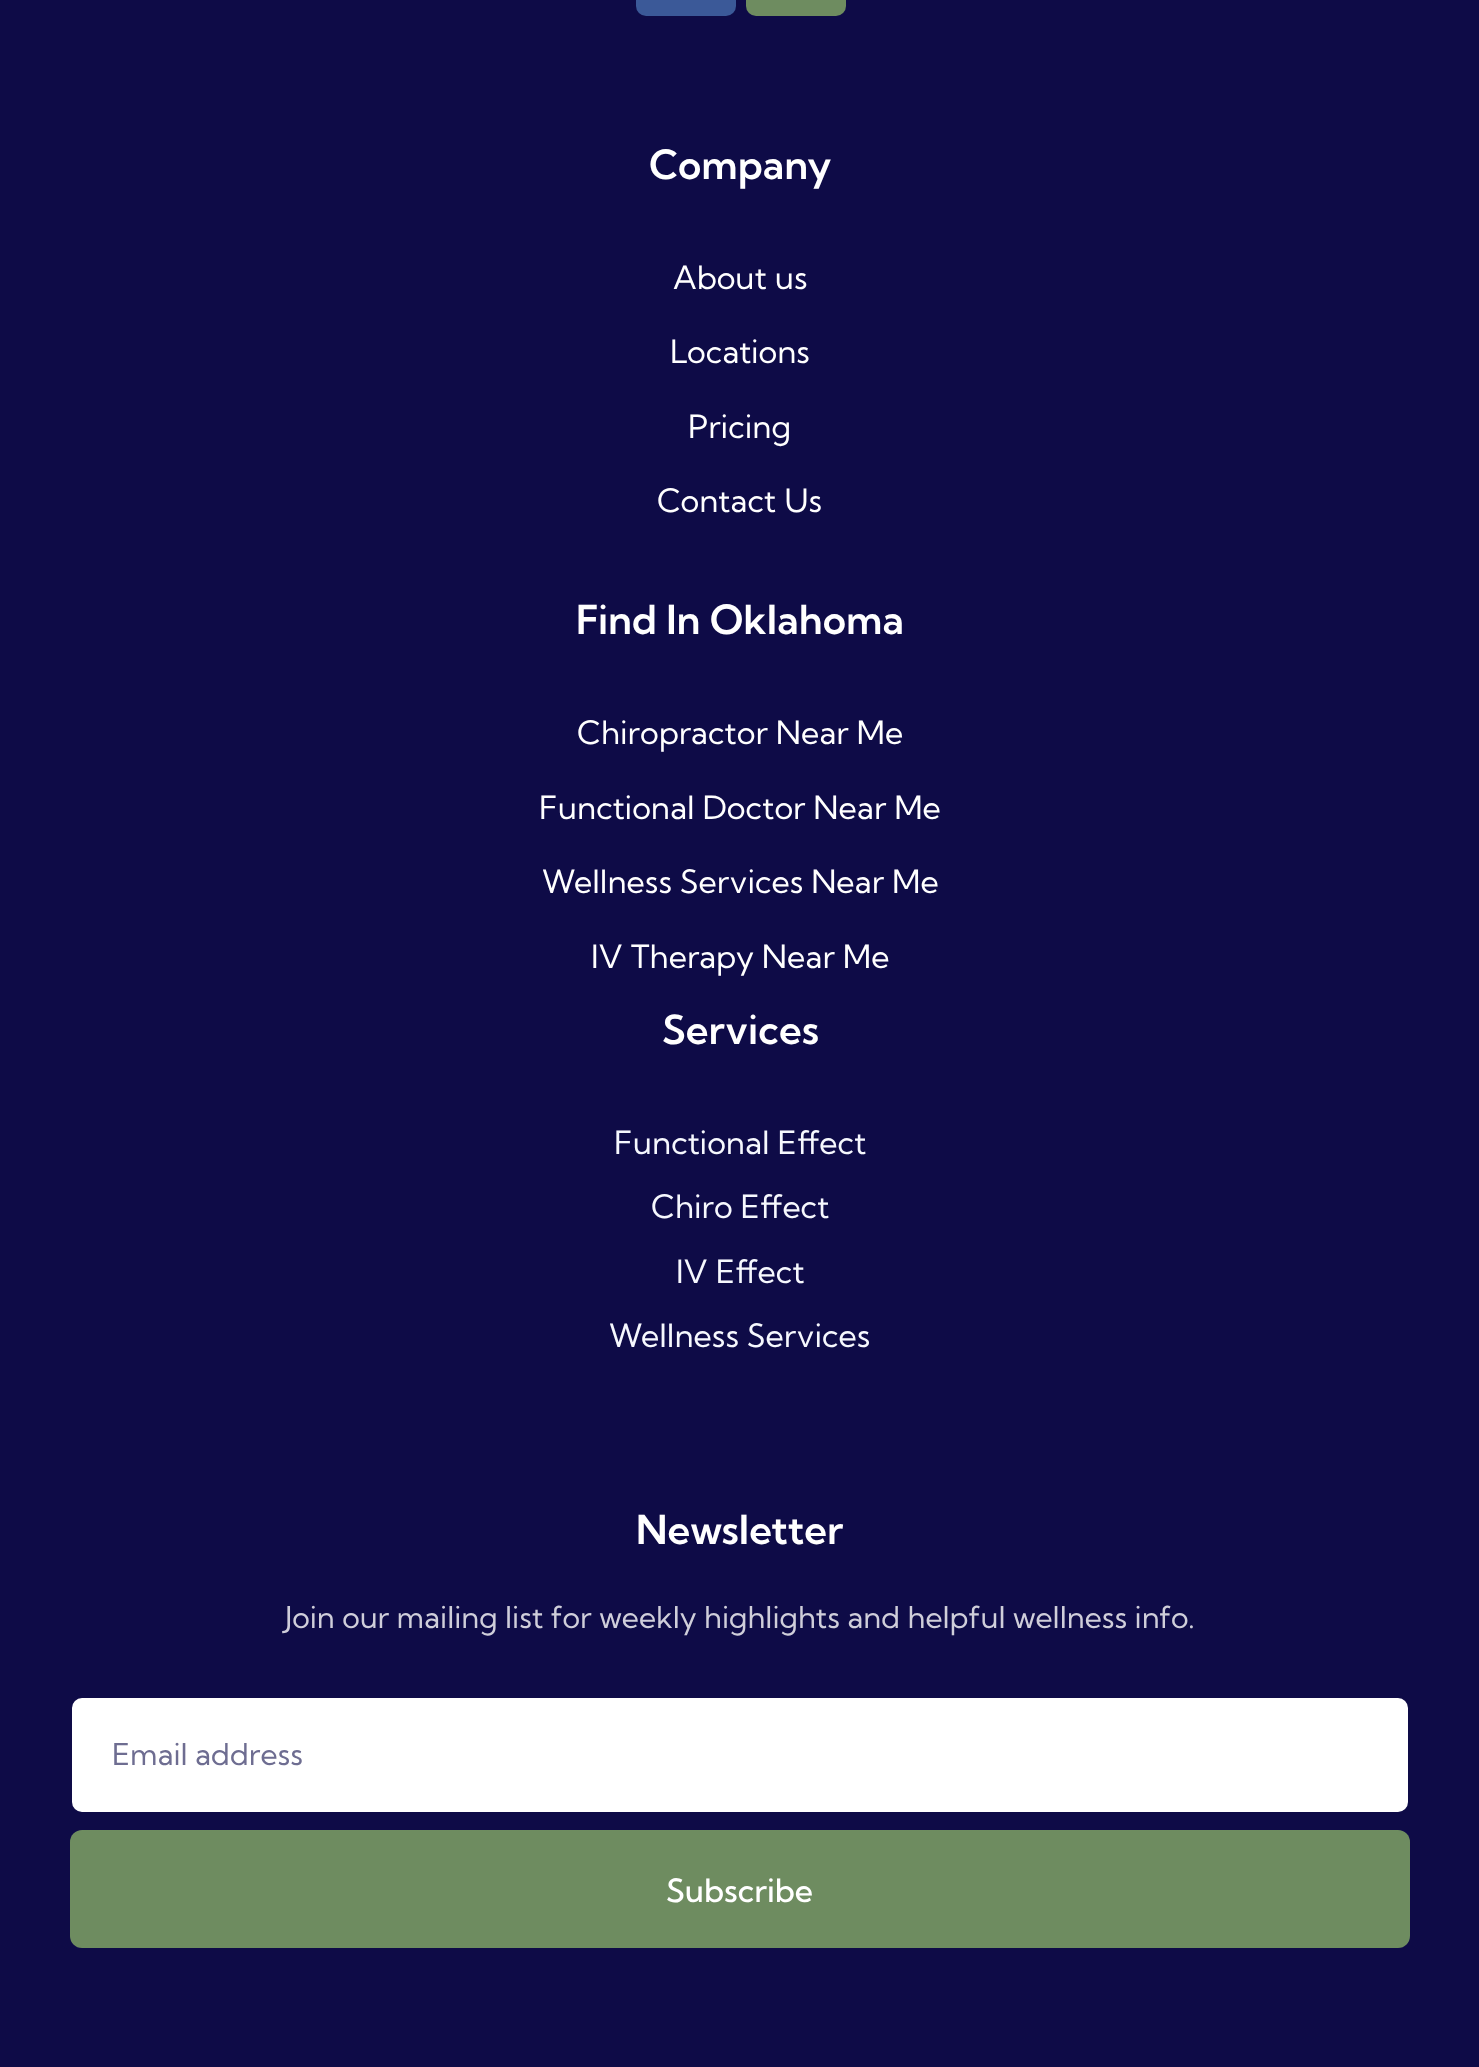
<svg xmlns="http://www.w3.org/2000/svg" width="1479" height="2067">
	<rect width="100%" height="100%" fill="#0E0B47" />
	<rect x="636" y="-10" width="100" height="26" rx="10" fill="#3B5998" />
	<rect x="746" y="-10" width="100" height="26" rx="10" fill="#6E8C60" />
	<text x="649" y="179" font-family="Kumbh Sans" font-size="40" font-weight="600" fill="#FFFFFF">Company</text>
	<g font-family="Kumbh Sans" font-size="32" fill="#FFFFFF">
		<text x="673" y="289">About us</text>
		<text x="670" y="363">Locations</text>
		<text x="688" y="438">Pricing</text>
		<text x="657" y="512">Contact Us</text>
	</g>
	<text x="576" y="634" font-family="Kumbh Sans" font-size="40" font-weight="600" fill="#FFFFFF">Find In Oklahoma</text>
	<g font-family="Kumbh Sans" font-size="32" fill="#FFFFFF">
		<text x="577" y="744">Chiropractor Near Me</text>
		<text x="539" y="819">Functional Doctor Near Me</text>
		<text x="542" y="893">Wellness Services Near Me</text>
		<text x="591" y="968">IV Therapy Near Me</text>
	</g>
	<text x="662" y="1044" font-family="Kumbh Sans" font-size="40" font-weight="600" fill="#FFFFFF">Services</text>
	<g font-family="Kumbh Sans" font-size="32" fill="#F6F8FE">
		<text x="614" y="1154">Functional Effect</text>
		<text x="651" y="1218">Chiro Effect</text>
		<text x="676" y="1283">IV Effect</text>
		<text x="609" y="1347">Wellness Services</text>
	</g>
	<text x="636" y="1544" font-family="Kumbh Sans" font-size="40" font-weight="600" fill="#FFFFFF">Newsletter</text>
	<text x="285" y="1628" font-family="Kumbh Sans" font-size="30" fill="#CFCEDA">Join our mailing list for weekly highlights and helpful wellness info.</text>
	<rect x="71" y="1697" width="1338" height="116" rx="11" fill="#FFFFFF" stroke="#0E0B47" stroke-width="2" />
	<text x="112" y="1765" font-family="Kumbh Sans" font-size="30" fill="#6E6D91">Email address</text>
	<rect x="70" y="1830" width="1340" height="118" rx="12" fill="#6E8C60" />
	<text x="666" y="1902" font-family="Kumbh Sans" font-size="32" font-weight="500" fill="#FFFFFF">Subscribe</text>
</svg>
